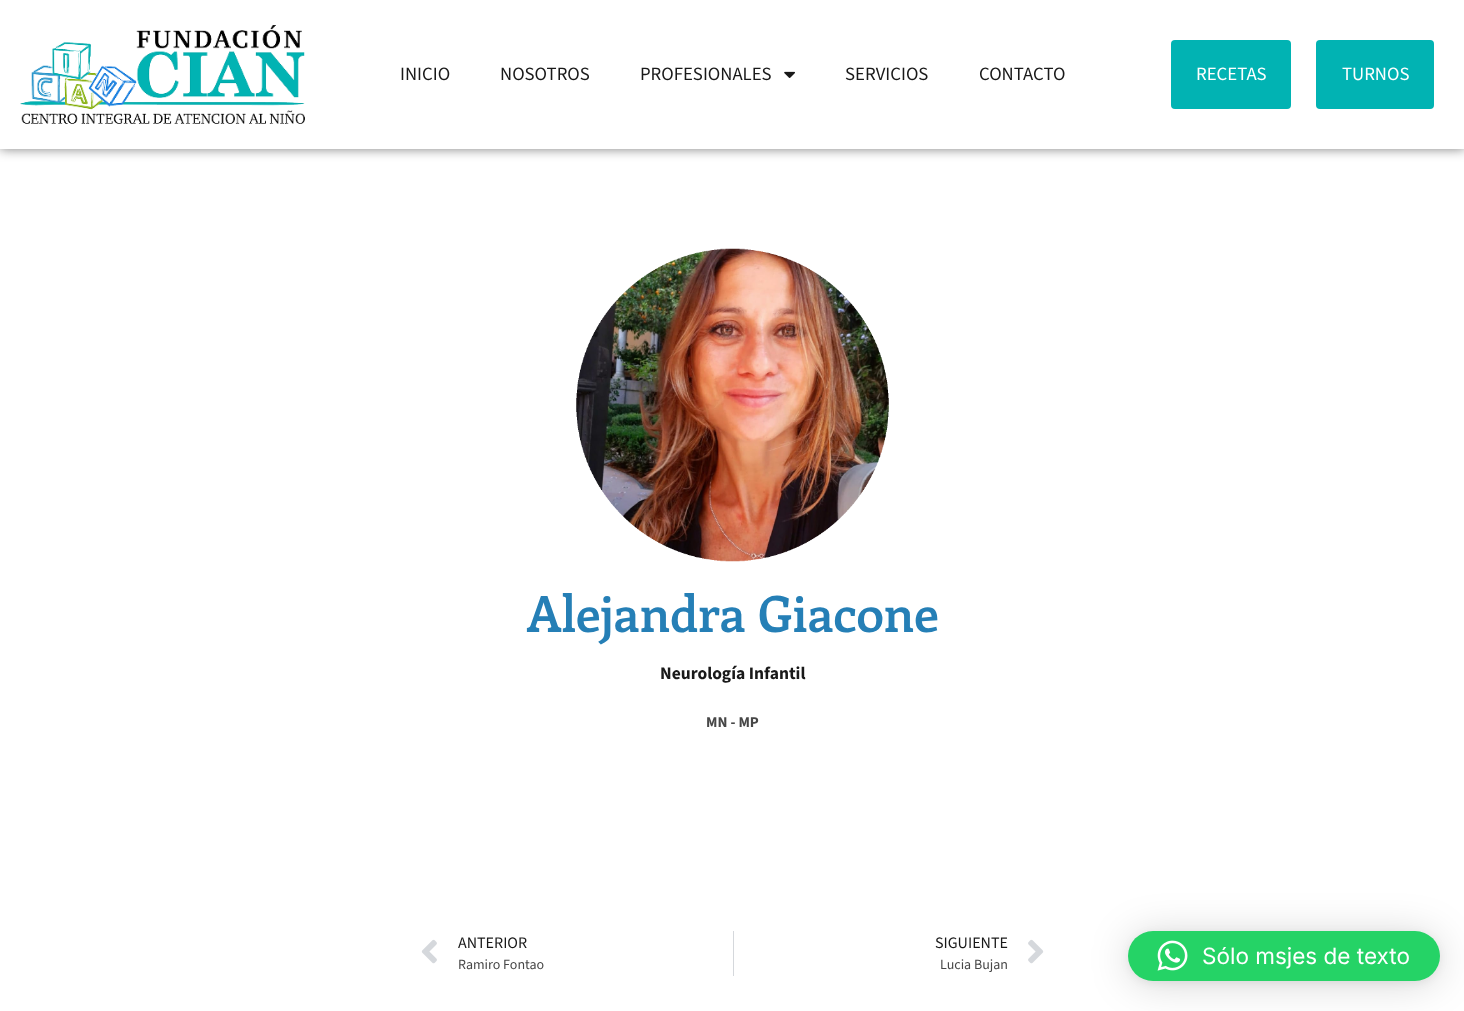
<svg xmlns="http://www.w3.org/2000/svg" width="1464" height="1011">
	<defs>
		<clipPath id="clip1"><path d="M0 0H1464V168H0ZM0 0H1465V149H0Z" clip-rule="evenodd" /></clipPath>
	</defs>
	<rect width="100%" height="100%" fill="#FFFFFF" />
	<g clip-path="url(#clip1)">
		<rect x="0" y="0" width="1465" height="149" fill="#000000" fill-opacity="0.5" filter="blur(6px)" />
	</g>
	<image x="20" y="25" width="285" height="99" href="assets/img1.png" />
	<g font-family="'Source Sans 3'" font-size="18.75" fill="#191919">
		<text x="400" y="80">INICIO</text>
		<text x="500" y="80">NOSOTROS</text>
		<text x="640" y="80">PROFESIONALES</text>
	</g>
	<image x="784" y="71" width="11" height="7" href="assets/img2.png" />
	<g font-family="'Source Sans 3'" font-size="18.75" fill="#191919">
		<text x="845" y="80">SERVICIOS</text>
		<text x="979" y="80">CONTACTO</text>
	</g>
	<rect x="1171" y="40" width="120" height="69" rx="4" fill="#01B3B3" />
	<text x="1196" y="80" font-family="'Source Sans 3'" font-size="18.75" fill="#FFFFFF">RECETAS</text>
	<rect x="1316" y="40" width="118" height="69" rx="4" fill="#01B3B3" />
	<text x="1342" y="80" font-family="'Source Sans 3'" font-size="18.75" fill="#FFFFFF">TURNOS</text>
	<image x="576" y="248" width="313" height="314" href="assets/img3.png" />
	<text x="527" y="632" font-family="Enriqueta" font-size="50" font-weight="600" fill="#257FB6">Alejandra Giacone</text>
	<text x="660" y="679" font-family="'Source Sans 3'" font-size="17.5" font-weight="700" fill="#191919">Neurología Infantil</text>
	<text x="706" y="727" font-family="'Source Sans 3'" font-size="15" font-weight="700" fill="#474747">MN - MP</text>
	<image x="421" y="939" width="16" height="25" href="assets/img4.png" />
	<text x="458" y="948" font-family="'Source Sans 3'" font-size="16" fill="#191919">ANTERIOR</text>
	<text x="458" y="969" font-family="'Source Sans 3'" font-size="14" fill="#474747">Ramiro Fontao</text>
	<rect x="733" y="931" width="1" height="45" fill="#D5D8DC" />
	<text x="935" y="948" font-family="'Source Sans 3'" font-size="16" fill="#191919">SIGUIENTE</text>
	<text x="940" y="969" font-family="'Source Sans 3'" font-size="14" fill="#474747">Lucia Bujan</text>
	<image x="1028" y="939" width="16" height="25" href="assets/img5.png" />
	<rect x="1128" y="934" width="312" height="50" rx="25" fill="#000000" fill-opacity="0.16" filter="blur(20px)" />
	<rect x="1128" y="933" width="312" height="50" rx="25" fill="#000000" fill-opacity="0.06" filter="blur(4px)" />
	<rect x="1128" y="931" width="312" height="50" rx="25" fill="#25D366" />
	<image x="1157" y="940" width="31" height="31" href="assets/img6.png" />
	<text x="1202" y="964" font-family="Inter" font-size="22.5" fill="#FFFFFF">Sólo msjes de texto</text>
</svg>
